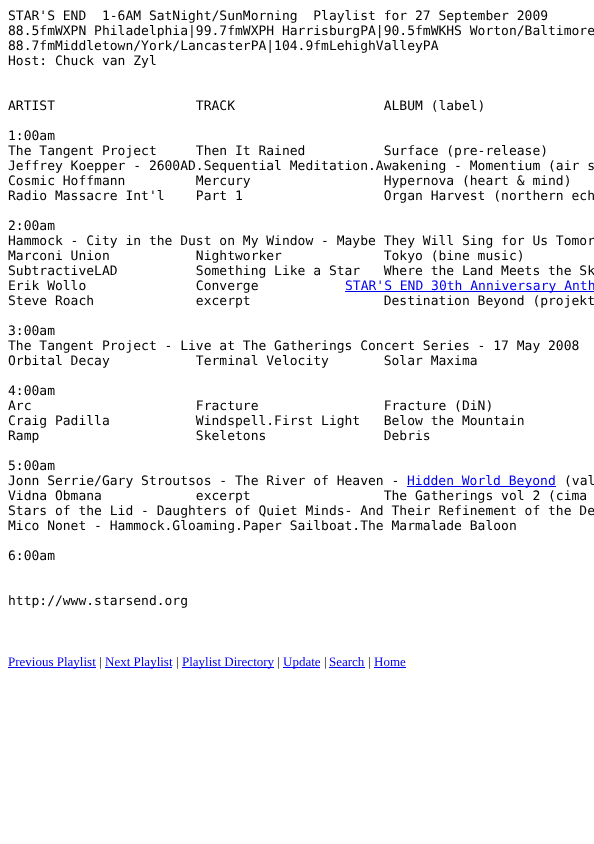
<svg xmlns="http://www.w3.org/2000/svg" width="594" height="844">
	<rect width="100%" height="100%" fill="#FFFFFF" />
	<g font-family="DejaVu Sans Mono" font-size="13" fill="#000000">
		<text x="8" y="20" xml:space="preserve">STAR'S END  1-6AM SatNight/SunMorning  Playlist for 27 September 2009</text>
		<text x="8" y="35">88.5fmWXPN Philadelphia|99.7fmWXPH HarrisburgPA|90.5fmWKHS Worton/Baltimore</text>
		<text x="8" y="50">88.7fmMiddletown/York/LancasterPA|104.9fmLehighValleyPA</text>
		<text x="8" y="65">Host: Chuck van Zyl</text>
		<text x="8" y="110" xml:space="preserve">ARTIST                  TRACK                   ALBUM (label)</text>
		<text x="8" y="140">1:00am</text>
		<text x="8" y="155" xml:space="preserve">The Tangent Project     Then It Rained          Surface (pre-release)</text>
		<text x="8" y="170">Jeffrey Koepper - 2600AD.Sequential Meditation.Awakening - Momentium (air s</text>
		<text x="8" y="185" xml:space="preserve">Cosmic Hoffmann         Mercury                 Hypernova (heart &amp; mind)</text>
		<text x="8" y="200" xml:space="preserve">Radio Massacre Int'l    Part 1                  Organ Harvest (northern ech</text>
		<text x="8" y="230">2:00am</text>
		<text x="8" y="245">Hammock - City in the Dust on My Window - Maybe They Will Sing for Us Tomor</text>
		<text x="8" y="260" xml:space="preserve">Marconi Union           Nightworker             Tokyo (bine music)</text>
		<text x="8" y="275" xml:space="preserve">SubtractiveLAD          Something Like a Star   Where the Land Meets the Sk</text>
		<text x="8" y="290" xml:space="preserve">Erik Wollo              Converge</text>
	</g>
	<rect x="345" y="291" width="249" height="1" fill="#0000EE" />
	<text x="345" y="290" font-family="DejaVu Sans Mono" font-size="13" fill="#0000EE">STAR'S END 30th Anniversary Anth</text>
	<g font-family="DejaVu Sans Mono" font-size="13" fill="#000000">
		<text x="8" y="305" xml:space="preserve">Steve Roach             excerpt                 Destination Beyond (projekt</text>
		<text x="8" y="335">3:00am</text>
		<text x="8" y="350">The Tangent Project - Live at The Gatherings Concert Series - 17 May 2008</text>
		<text x="8" y="365" xml:space="preserve">Orbital Decay           Terminal Velocity       Solar Maxima</text>
		<text x="8" y="395">4:00am</text>
		<text x="8" y="410" xml:space="preserve">Arc                     Fracture                Fracture (DiN)</text>
		<text x="8" y="425" xml:space="preserve">Craig Padilla           Windspell.First Light   Below the Mountain</text>
		<text x="8" y="440" xml:space="preserve">Ramp                    Skeletons               Debris</text>
		<text x="8" y="470">5:00am</text>
		<text x="8" y="485">Jonn Serrie/Gary Stroutsos - The River of Heaven -</text>
	</g>
	<rect x="407" y="486" width="149" height="1" fill="#0000EE" />
	<text x="407" y="485" font-family="DejaVu Sans Mono" font-size="13" fill="#0000EE">Hidden World Beyond</text>
	<g font-family="DejaVu Sans Mono" font-size="13" fill="#000000">
		<text x="564" y="485">(val</text>
		<text x="8" y="500" xml:space="preserve">Vidna Obmana            excerpt                 The Gatherings vol 2 (cima</text>
		<text x="8" y="515">Stars of the Lid - Daughters of Quiet Minds- And Their Refinement of the De</text>
		<text x="8" y="530">Mico Nonet - Hammock.Gloaming.Paper Sailboat.The Marmalade Baloon</text>
		<text x="8" y="560">6:00am</text>
		<text x="8" y="605">http://www.starsend.org</text>
	</g>
	<rect x="8" y="667" width="88" height="1" fill="#0000EE" />
	<text x="8" y="666" font-family="Liberation Serif" font-size="13" fill="#0000EE">Previous Playlist</text>
	<text x="99" y="666" font-family="Liberation Serif" font-size="13" fill="#000000">|</text>
	<rect x="105" y="667" width="67" height="1" fill="#0000EE" />
	<text x="105" y="666" font-family="Liberation Serif" font-size="13" fill="#0000EE">Next Playlist</text>
	<text x="176" y="666" font-family="Liberation Serif" font-size="13" fill="#000000">|</text>
	<rect x="182" y="667" width="92" height="1" fill="#0000EE" />
	<text x="182" y="666" font-family="Liberation Serif" font-size="13" fill="#0000EE">Playlist Directory</text>
	<text x="277" y="666" font-family="Liberation Serif" font-size="13" fill="#000000">|</text>
	<rect x="283" y="667" width="37" height="1" fill="#0000EE" />
	<text x="283" y="666" font-family="Liberation Serif" font-size="13" fill="#0000EE">Update</text>
	<text x="324" y="666" font-family="Liberation Serif" font-size="13" fill="#000000">|</text>
	<text x="329" y="666" font-family="Liberation Serif" font-size="13" fill="#0000EE">Search</text>
	<rect x="329" y="667" width="36" height="1" fill="#0000EE" />
	<text x="368" y="666" font-family="Liberation Serif" font-size="13" fill="#000000">|</text>
	<text x="374" y="666" font-family="Liberation Serif" font-size="13" fill="#0000EE">Home</text>
	<rect x="374" y="667" width="32" height="1" fill="#0000EE" />
</svg>
